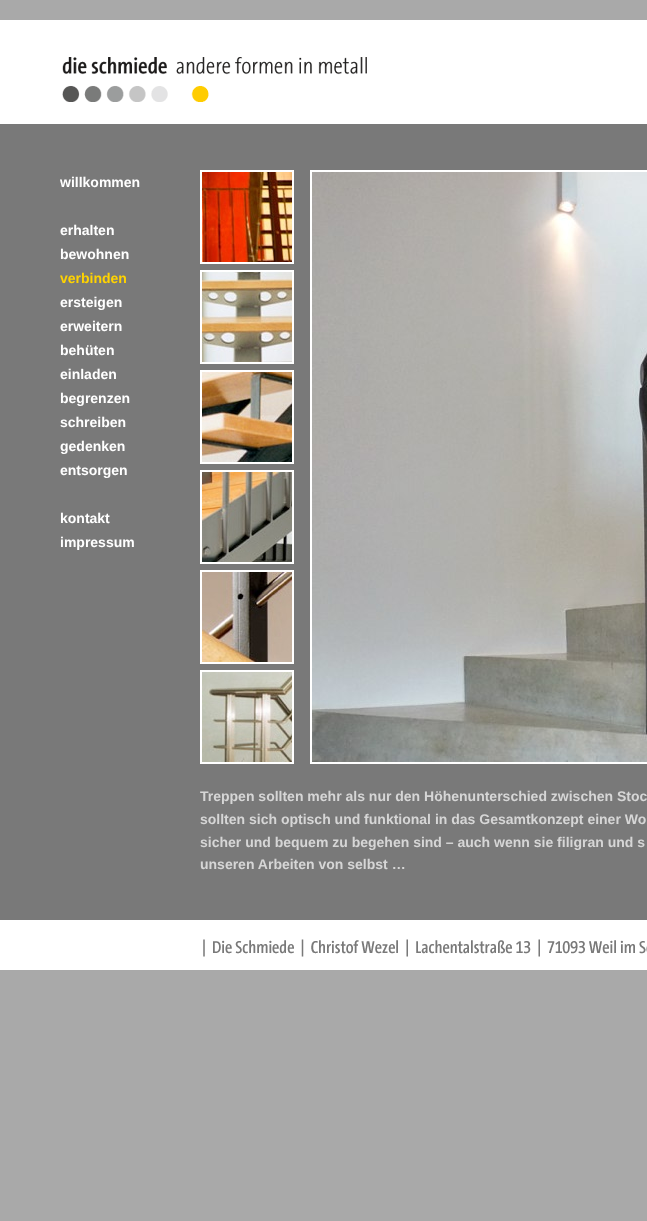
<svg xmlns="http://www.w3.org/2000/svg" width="647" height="1221">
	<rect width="100%" height="100%" fill="#A9A9A9" />
	<rect x="0" y="22" width="647" height="948" fill="#FFFFFF" />
	<rect x="1" y="21" width="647" height="102" fill="none" stroke="#FFFFFF" stroke-width="2" />
	<image x="2" y="57" width="645" height="65" href="assets/img1.png" />
	<rect x="0" y="124" width="647" height="796" fill="#797979" />
	<g font-family="Liberation Sans" font-size="14" font-weight="700" fill="#FFFFFF">
		<text x="60" y="187">willkommen</text>
		<text x="60" y="235">erhalten</text>
		<text x="60" y="259">bewohnen</text>
	</g>
	<text x="60" y="283" font-family="Liberation Sans" font-size="14" font-weight="700" fill="#FFD300">verbinden</text>
	<g font-family="Liberation Sans" font-size="14" font-weight="700" fill="#FFFFFF">
		<text x="60" y="307">ersteigen</text>
		<text x="60" y="331">erweitern</text>
		<text x="60" y="355">behüten</text>
		<text x="60" y="379">einladen</text>
		<text x="60" y="403">begrenzen</text>
		<text x="60" y="427">schreiben</text>
		<text x="60" y="451">gedenken</text>
		<text x="60" y="475">entsorgen</text>
		<text x="60" y="523">kontakt</text>
		<text x="60" y="547">impressum</text>
	</g>
	<rect x="201" y="171" width="92" height="92" fill="none" stroke="#FFFFFF" stroke-width="2" />
	<image x="202" y="172" width="90" height="90" href="assets/img2.png" />
	<rect x="311" y="171" width="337" height="592" fill="none" stroke="#FFFFFF" stroke-width="2" />
	<image x="312" y="172" width="335" height="590" href="assets/img3.png" />
	<rect x="201" y="271" width="92" height="92" fill="none" stroke="#FFFFFF" stroke-width="2" />
	<image x="202" y="272" width="90" height="90" href="assets/img4.png" />
	<rect x="201" y="371" width="92" height="92" fill="none" stroke="#FFFFFF" stroke-width="2" />
	<image x="202" y="372" width="90" height="90" href="assets/img5.png" />
	<rect x="201" y="471" width="92" height="92" fill="none" stroke="#FFFFFF" stroke-width="2" />
	<image x="202" y="472" width="90" height="90" href="assets/img6.png" />
	<rect x="201" y="571" width="92" height="92" fill="none" stroke="#FFFFFF" stroke-width="2" />
	<image x="202" y="572" width="90" height="90" href="assets/img7.png" />
	<rect x="201" y="671" width="92" height="92" fill="none" stroke="#FFFFFF" stroke-width="2" />
	<image x="202" y="672" width="90" height="90" href="assets/img8.png" />
	<g font-family="Liberation Sans" font-size="14" font-weight="700" fill="#D6D6D6">
		<text x="200" y="801">Treppen sollten mehr als nur den Höhenunterschied zwischen Stoc</text>
		<text x="200" y="824">sollten sich optisch und funktional in das Gesamtkonzept einer Wo</text>
		<text x="200" y="847">sicher und bequem zu begehen sind – auch wenn sie filigran und s</text>
		<text x="200" y="869">unseren Arbeiten von selbst …</text>
	</g>
	<image x="203" y="939" width="444" height="18" href="assets/img9.png" />
</svg>
